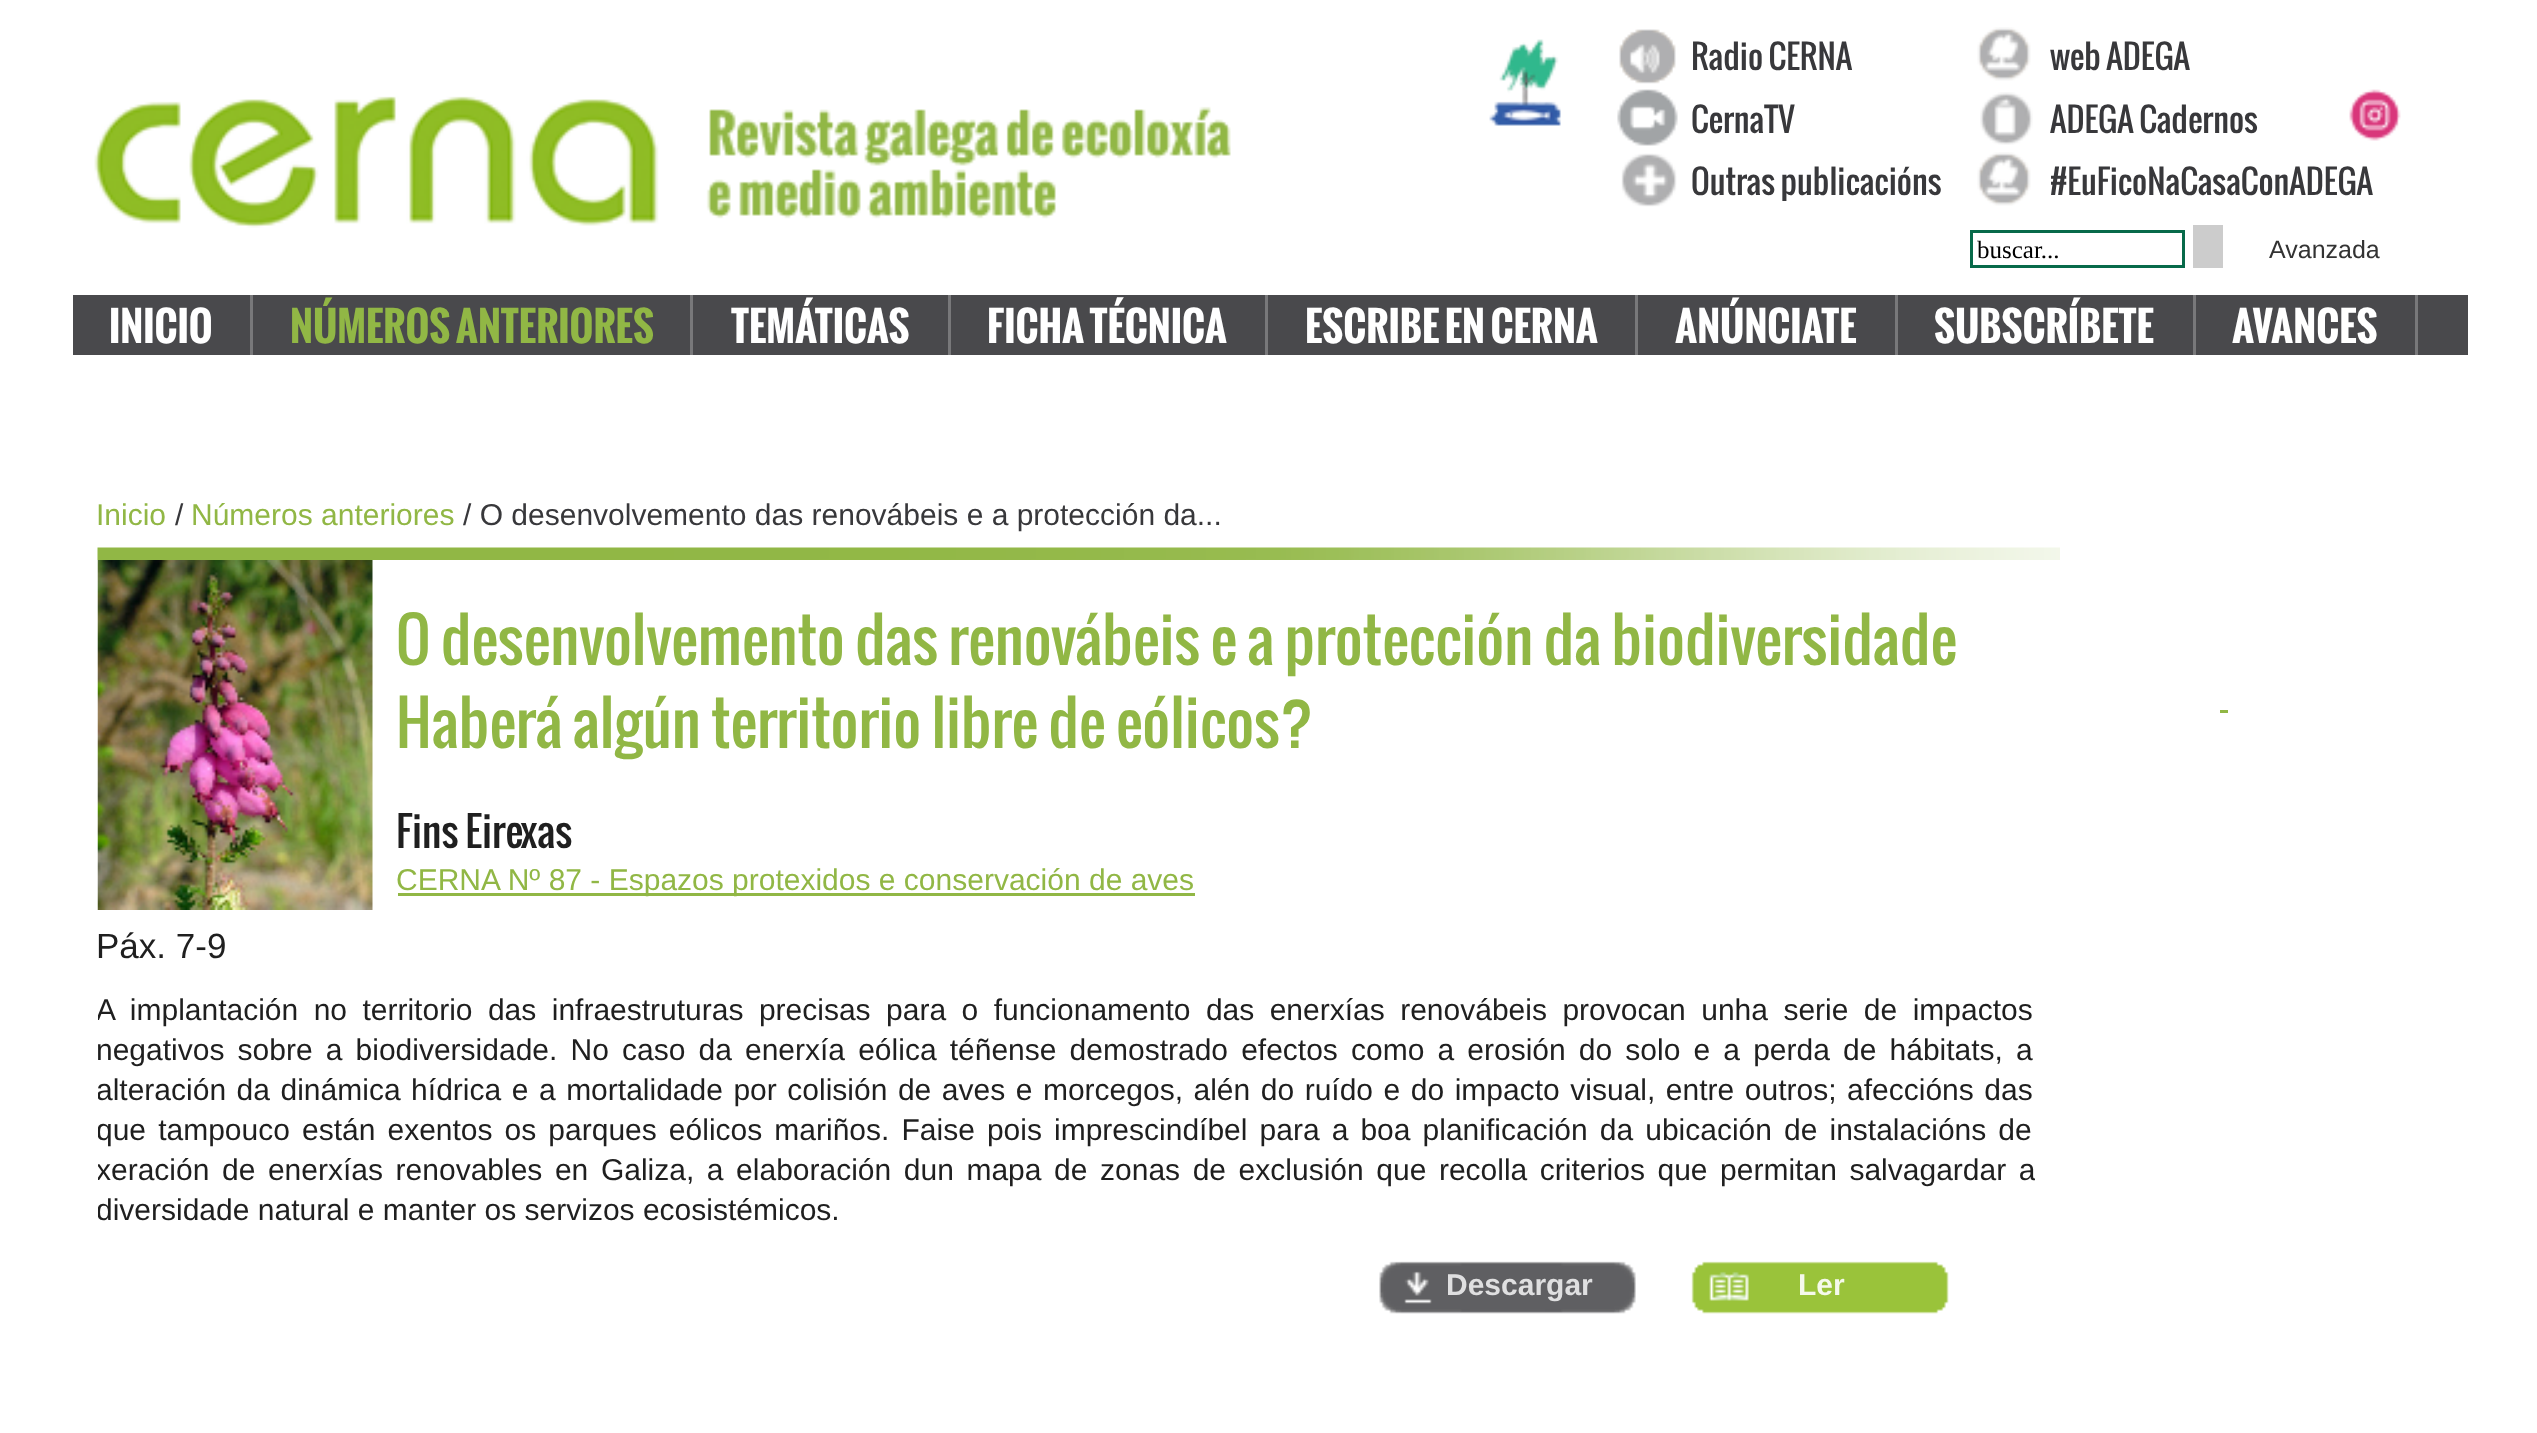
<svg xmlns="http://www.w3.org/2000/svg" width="2537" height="1433">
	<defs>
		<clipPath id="clip1"><rect x="98" y="560" width="1937" height="773" /></clipPath>
	</defs>
	<rect width="100%" height="100%" fill="#FFFFFF" />
	<image x="94" y="96" width="1137" height="132" href="assets/img1.png" />
	<image x="1489" y="39" width="72" height="87" href="assets/img2.png" />
	<image x="1619" y="29" width="57" height="55" href="assets/img3.png" />
	<text x="1691" y="70" font-family="Oswald" font-size="32.5" fill="#38383B">Radio CERNA</text>
	<image x="1977" y="27" width="54" height="54" href="assets/img4.png" />
	<text x="2050" y="70" font-family="Oswald" font-size="32.5" fill="#38383B">web ADEGA</text>
	<image x="1617" y="89" width="61" height="57" href="assets/img5.png" />
	<text x="1691" y="133" font-family="Oswald" font-size="32.5" fill="#38383B">CernaTV</text>
	<image x="1980" y="92" width="53" height="53" href="assets/img6.png" />
	<text x="2050" y="133" font-family="Oswald" font-size="32.5" fill="#38383B">ADEGA Cadernos</text>
	<image x="1621" y="153" width="56" height="54" href="assets/img7.png" />
	<text x="1691" y="195" font-family="Oswald" font-size="32.5" fill="#38383B">Outras publicacións</text>
	<image x="1977" y="152" width="54" height="54" href="assets/img4.png" />
	<text x="2050" y="195" font-family="Oswald" font-size="32.5" fill="#38383B">#EuFicoNaCasaConADEGA</text>
	<image x="2349" y="89" width="52" height="52" href="assets/img8.png" />
	<rect x="1971.5" y="231.5" width="212" height="35" fill="none" stroke="#076A4A" stroke-width="3" />
	<text x="1977" y="258" font-family="Liberation Serif" font-size="25" fill="#000000">buscar...</text>
	<rect x="2193" y="225" width="30" height="43" fill="#CCCCCC" />
	<text x="2269" y="258" font-family="Liberation Sans" font-size="25" fill="#333333">Avanzada</text>
	<rect x="73" y="295" width="2395" height="60" fill="#49494C" />
	<rect x="250" y="295" width="3" height="60" fill="#78787A" />
	<text x="109" y="343" font-family="Oswald" font-size="40" font-weight="700" fill="#FFFFFF">INICIO</text>
	<rect x="690" y="295" width="3" height="60" fill="#78787A" />
	<text x="290" y="343" font-family="Oswald" font-size="40" font-weight="700" fill="#91B745">NÚMEROS ANTERIORES</text>
	<rect x="948" y="295" width="3" height="60" fill="#78787A" />
	<text x="731" y="343" font-family="Oswald" font-size="40" font-weight="700" fill="#FFFFFF">TEMÁTICAS</text>
	<rect x="1265" y="295" width="3" height="60" fill="#78787A" />
	<text x="987" y="343" font-family="Oswald" font-size="40" font-weight="700" fill="#FFFFFF">FICHA TÉCNICA</text>
	<rect x="1635" y="295" width="3" height="60" fill="#78787A" />
	<text x="1305" y="343" font-family="Oswald" font-size="40" font-weight="700" fill="#FFFFFF">ESCRIBE EN CERNA</text>
	<rect x="1895" y="295" width="3" height="60" fill="#78787A" />
	<text x="1675" y="343" font-family="Oswald" font-size="40" font-weight="700" fill="#FFFFFF">ANÚNCIATE</text>
	<rect x="2193" y="295" width="3" height="60" fill="#78787A" />
	<text x="1934" y="343" font-family="Oswald" font-size="40" font-weight="700" fill="#FFFFFF">SUBSCRÍBETE</text>
	<rect x="2415" y="295" width="3" height="60" fill="#78787A" />
	<text x="2232" y="343" font-family="Oswald" font-size="40" font-weight="700" fill="#FFFFFF">AVANCES</text>
	<text x="96" y="525" font-family="Liberation Sans" font-size="30" fill="#91B745">Inicio</text>
	<text x="175" y="525" font-family="Liberation Sans" font-size="30" fill="#38383B">/</text>
	<text x="191" y="525" font-family="Liberation Sans" font-size="30" fill="#91B745">Números anteriores</text>
	<text x="463" y="525" font-family="Liberation Sans" font-size="30" fill="#38383B">/ O desenvolvemento das renovábeis e a protección da...</text>
	<image x="97" y="547" width="1963" height="13" href="assets/img9.png" />
	<image x="97" y="560" width="276" height="350" href="assets/img10.png" />
	<g font-family="Oswald" font-size="60" fill="#91B745">
		<text x="396" y="665">O desenvolvemento das renovábeis e a protección da biodiversidade</text>
		<text x="396" y="748">Haberá algún territorio libre de eólicos?</text>
	</g>
	<text x="396" y="848" font-family="Oswald" font-size="40" fill="#1F1F1F">Fins Eirexas</text>
	<rect x="398" y="893" width="797" height="3" fill="#91B745" />
	<text x="396" y="890" font-family="Liberation Sans" font-size="30" fill="#91B745">CERNA Nº 87 - Espazos protexidos e conservación de aves</text>
	<text x="96" y="958" font-family="Liberation Sans" font-size="35" fill="#1F1F1F">Páx. 7-9</text>
	<g clip-path="url(#clip1)">
		<text x="96" y="1020" word-spacing="7.1" font-family="Liberation Sans" font-size="30" fill="#1F1F1F">A implantación no territorio das infraestruturas precisas para o funcionamento das enerxías renovábeis provocan unha serie de impactos</text>
	</g>
	<text x="96" y="1060" word-spacing="4.8" font-family="Liberation Sans" font-size="30" fill="#1F1F1F">negativos sobre a biodiversidade. No caso da enerxía eólica téñense demostrado efectos como a erosión do solo e a perda de hábitats, a</text>
	<g clip-path="url(#clip1)">
		<g font-family="Liberation Sans" font-size="30" fill="#1F1F1F">
			<text x="96" y="1100" word-spacing="2.2">alteración da dinámica hídrica e a mortalidade por colisión de aves e morcegos, alén do ruído e do impacto visual, entre outros; afeccións das</text>
			<text x="96" y="1140" word-spacing="3.75">que tampouco están exentos os parques eólicos mariños. Faise pois imprescindíbel para a boa planificación da ubicación de instalacións de</text>
			<text x="96" y="1180" word-spacing="4.25">xeración de enerxías renovables en Galiza, a elaboración dun mapa de zonas de exclusión que recolla criterios que permitan salvagardar a</text>
			<text x="96" y="1220">diversidade natural e manter os servizos ecosistémicos.</text>
		</g>
	</g>
	<image x="1379" y="1261" width="257" height="53" href="assets/img11.png" />
	<text x="1446" y="1295" font-family="Liberation Sans" font-size="30" font-weight="700" fill="#DFDFE0">Descargar</text>
	<image x="1691" y="1261" width="258" height="53" href="assets/img12.png" />
	<text x="1798" y="1295" font-family="Liberation Sans" font-size="30" font-weight="700" fill="#F5F9EB">Ler</text>
	<rect x="2220" y="710" width="8" height="3" fill="#91B745" />
</svg>
